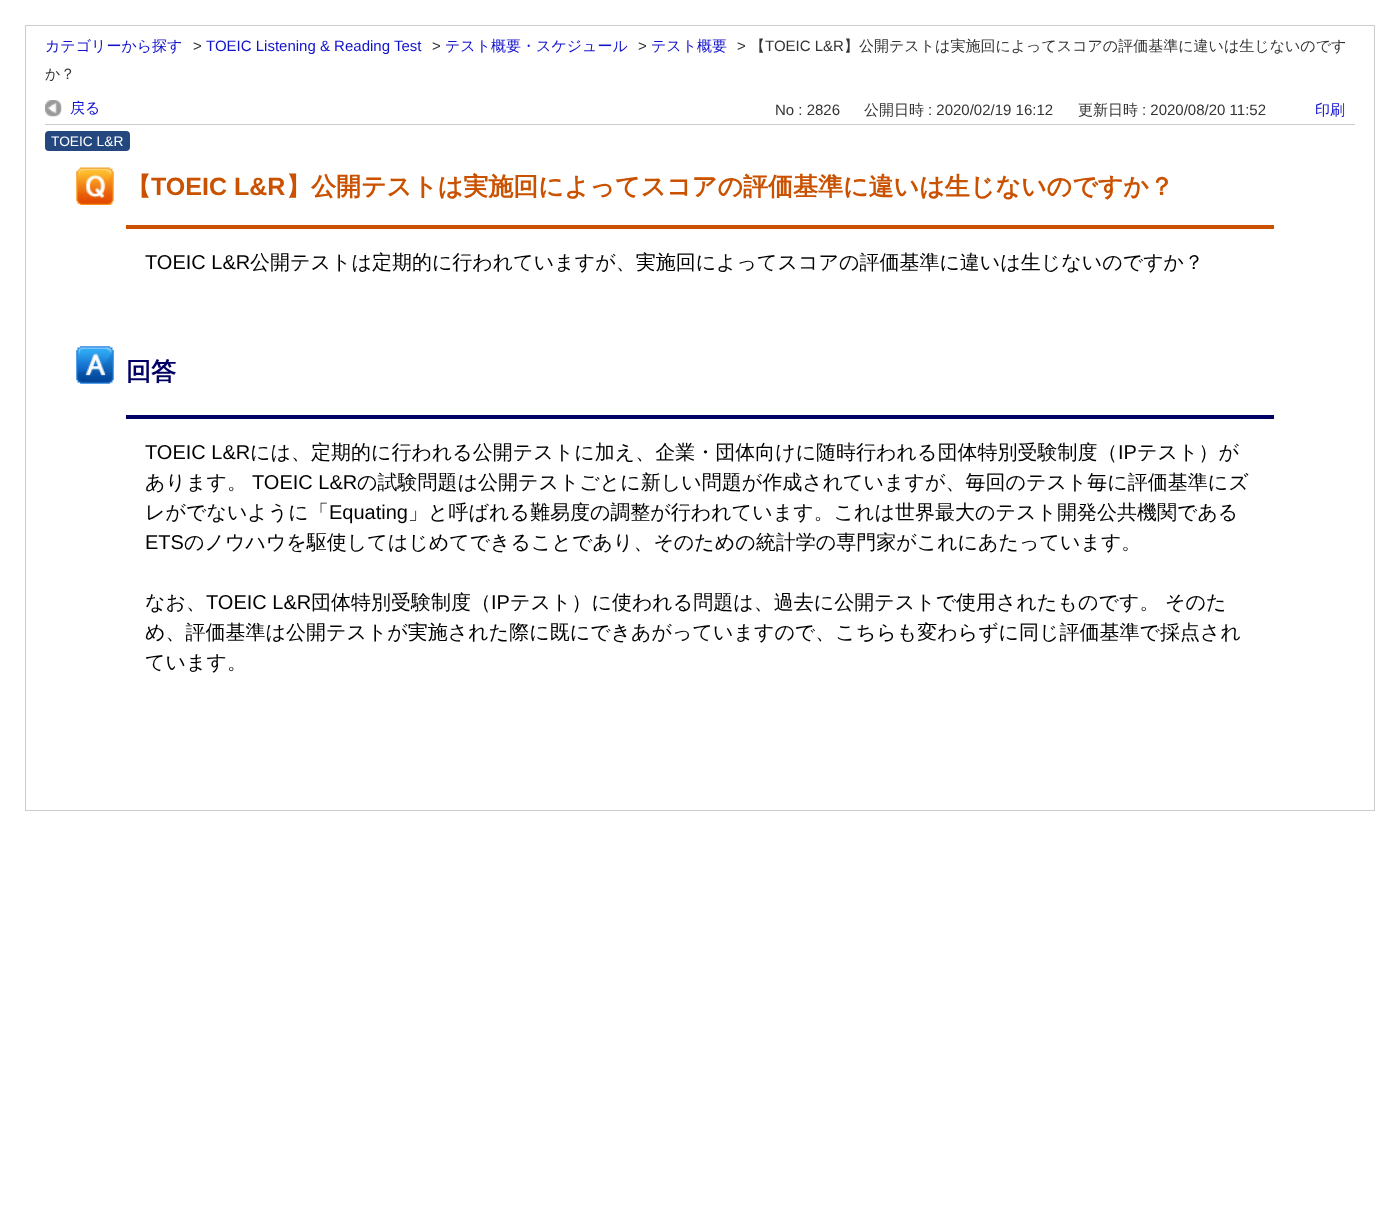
<svg xmlns="http://www.w3.org/2000/svg" width="1399" height="1217">
	<rect width="100%" height="100%" fill="#FFFFFF" />
	<rect x="25.5" y="25.5" width="1349" height="785" fill="none" stroke="#CCCCCC" />
	<text x="45" y="51" font-family="WenQuanYi Zen Hei" font-size="15" font-weight="500" fill="#1111CC">カテゴリーから探す</text>
	<text x="193" y="51" font-family="Liberation Sans" font-size="15" fill="#333333">&gt;</text>
	<text x="206" y="51" font-family="Liberation Sans" font-size="15" fill="#1111CC">TOEIC Listening &amp; Reading Test</text>
	<text x="432" y="51" font-family="Liberation Sans" font-size="15" fill="#333333">&gt;</text>
	<text x="445" y="51" font-family="WenQuanYi Zen Hei" font-size="15" font-weight="500" fill="#1111CC">テスト概要・スケジュール</text>
	<text x="638" y="51" font-family="Liberation Sans" font-size="15" fill="#333333">&gt;</text>
	<text x="651" y="51" font-family="WenQuanYi Zen Hei" font-size="15" font-weight="500" fill="#1111CC">テスト概要</text>
	<text x="737" y="51" font-family="Liberation Sans" font-size="15" fill="#333333">&gt;</text>
	<text x="750" y="51" font-family="WenQuanYi Zen Hei" font-size="15" font-weight="500" fill="#333333">【</text>
	<text x="765" y="51" font-family="Liberation Sans" font-size="15" fill="#333333">TOEIC L&amp;R</text>
	<g font-family="WenQuanYi Zen Hei" font-size="15" font-weight="500" fill="#333333">
		<text x="844" y="51">】公開テストは実施回によってスコアの評価基準に違いは生じないのです</text>
		<text x="45" y="79">か？</text>
	</g>
	<rect x="45" y="124" width="1310" height="1" fill="#CCCCCC" />
	<image x="45" y="100" width="17" height="17" href="assets/img1.png" />
	<text x="70" y="113" font-family="WenQuanYi Zen Hei" font-size="15" font-weight="500" fill="#1111CC">戻る</text>
	<text x="775" y="115" font-family="Liberation Sans" font-size="15" fill="#333333">No : 2826</text>
	<text x="864" y="115" font-family="WenQuanYi Zen Hei" font-size="15" font-weight="500" fill="#333333">公開日時</text>
	<text x="928" y="115" font-family="Liberation Sans" font-size="15" fill="#333333">: 2020/02/19 16:12</text>
	<text x="1078" y="115" font-family="WenQuanYi Zen Hei" font-size="15" font-weight="500" fill="#333333">更新日時</text>
	<text x="1142" y="115" font-family="Liberation Sans" font-size="15" fill="#333333">: 2020/08/20 11:52</text>
	<text x="1315" y="115" font-family="WenQuanYi Zen Hei" font-size="15" font-weight="500" fill="#1111CC">印刷</text>
	<rect x="45" y="131" width="85" height="20" rx="4" fill="#23477E" />
	<text x="51" y="146" font-family="Liberation Sans" font-size="13.75" fill="#FFFFFF">TOEIC L&amp;R</text>
	<image x="76" y="167" width="38" height="38" href="assets/img2.png" />
	<text x="126" y="195" font-family="WenQuanYi Zen Hei" font-size="25" font-weight="700" fill="#C95100">【</text>
	<text x="151" y="195" font-family="Liberation Sans" font-size="25" font-weight="700" fill="#C95100">TOEIC L&amp;R</text>
	<text x="286" y="195" font-family="WenQuanYi Zen Hei" font-size="25" font-weight="700" fill="#C95100">】公開テストは実施回によってスコアの評価基準に違いは生じないのですか？</text>
	<rect x="126" y="225" width="1148" height="4" fill="#C95100" />
	<text x="145" y="269" font-family="Liberation Sans" font-size="20" fill="#000000">TOEIC L&amp;R</text>
	<text x="250" y="269" font-family="WenQuanYi Zen Hei" font-size="20" font-weight="500" fill="#000000">公開テストは定期的に行われていますが、実施回によってスコアの評価基準に違いは生じないのですか？</text>
	<image x="76" y="346" width="38" height="38" href="assets/img3.png" />
	<text x="126" y="380" font-family="WenQuanYi Zen Hei" font-size="25" font-weight="700" fill="#000064">回答</text>
	<rect x="126" y="415" width="1148" height="4" fill="#000064" />
	<text x="145" y="459" font-family="Liberation Sans" font-size="20" fill="#000000">TOEIC L&amp;R</text>
	<text x="250" y="459" font-family="WenQuanYi Zen Hei" font-size="20" font-weight="500" fill="#000000">には、定期的に行われる公開テストに加え、企業・団体向けに随時行われる団体特別受験制度（</text>
	<text x="1118" y="459" font-family="Liberation Sans" font-size="20" fill="#000000">IP</text>
	<g font-family="WenQuanYi Zen Hei" font-size="20" font-weight="500" fill="#000000">
		<text x="1137" y="459">テスト）が</text>
		<text x="145" y="489">あります。</text>
	</g>
	<text x="252" y="489" font-family="Liberation Sans" font-size="20" fill="#000000">TOEIC L&amp;R</text>
	<g font-family="WenQuanYi Zen Hei" font-size="20" font-weight="500" fill="#000000">
		<text x="357" y="489">の試験問題は公開テストごとに新しい問題が作成されていますが、毎回のテスト毎に評価基準にズ</text>
		<text x="145" y="519">レがでないように「</text>
	</g>
	<text x="329" y="519" font-family="Liberation Sans" font-size="20" fill="#000000">Equating</text>
	<text x="408" y="519" font-family="WenQuanYi Zen Hei" font-size="20" font-weight="500" fill="#000000">」と呼ばれる難易度の調整が行われています。これは世界最大のテスト開発公共機関である</text>
	<text x="145" y="549" font-family="Liberation Sans" font-size="20" fill="#000000">ETS</text>
	<g font-family="WenQuanYi Zen Hei" font-size="20" font-weight="500" fill="#000000">
		<text x="184" y="549">のノウハウを駆使してはじめてできることであり、そのための統計学の専門家がこれにあたっています。</text>
		<text x="145" y="609">なお、</text>
	</g>
	<text x="206" y="609" font-family="Liberation Sans" font-size="20" fill="#000000">TOEIC L&amp;R</text>
	<text x="311" y="609" font-family="WenQuanYi Zen Hei" font-size="20" font-weight="500" fill="#000000">団体特別受験制度（</text>
	<text x="491" y="609" font-family="Liberation Sans" font-size="20" fill="#000000">IP</text>
	<g font-family="WenQuanYi Zen Hei" font-size="20" font-weight="500" fill="#000000">
		<text x="510" y="609">テスト）に使われる問題は、過去に公開テストで使用されたものです。</text>
		<text x="1165" y="609">そのた</text>
		<text x="145" y="639">め、評価基準は公開テストが実施された際に既にできあがっていますので、こちらも変わらずに同じ評価基準で採点され</text>
		<text x="145" y="669">ています。</text>
	</g>
</svg>
